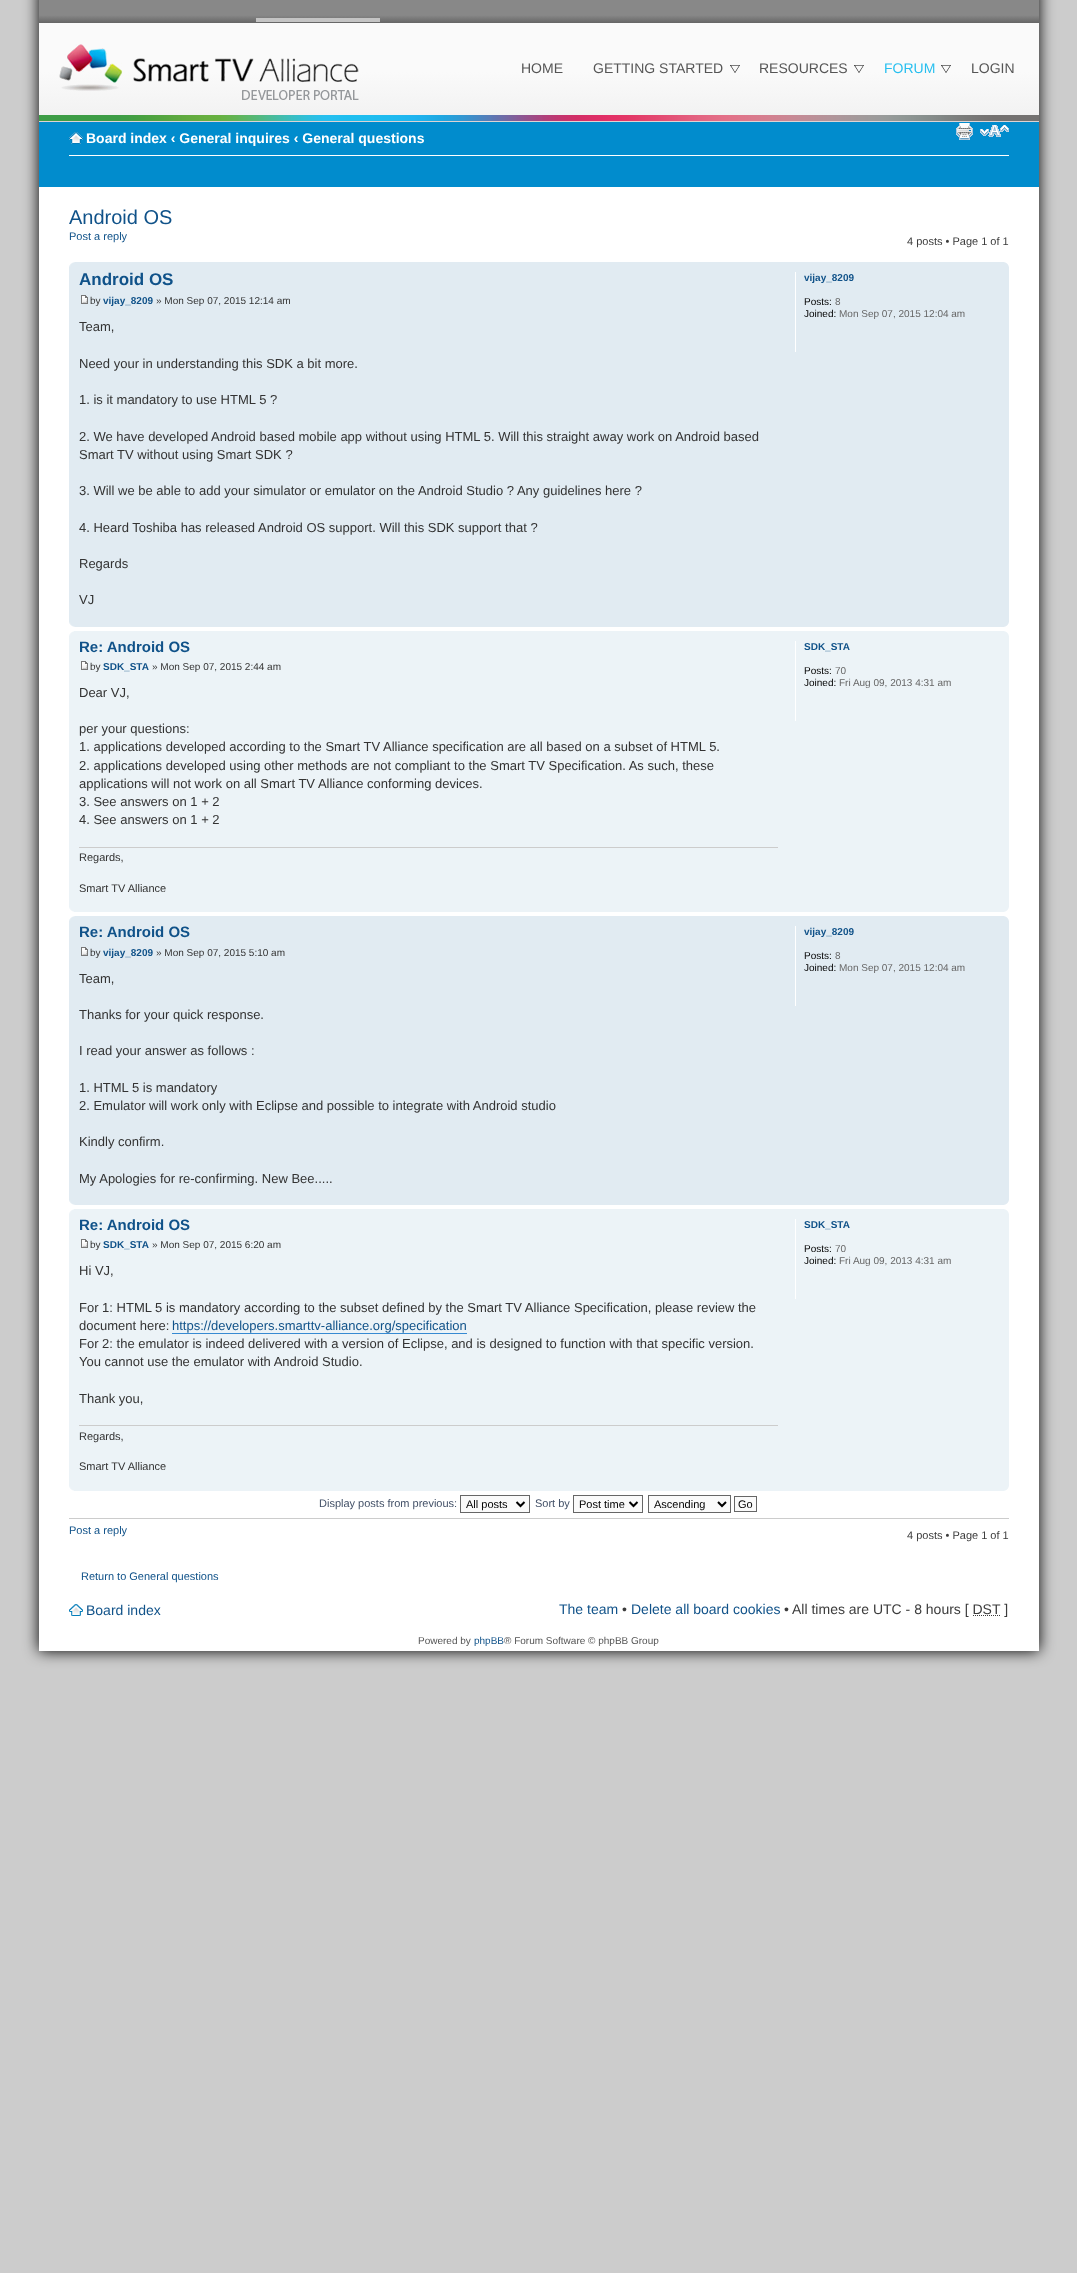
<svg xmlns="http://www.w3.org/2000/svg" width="1077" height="2273">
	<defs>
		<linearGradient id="g1" gradientUnits="userSpaceOnUse" x1="539" y1="-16" x2="539" y2="23"><stop offset="0.8" stop-color="#888888" /><stop offset="1" stop-color="#656565" /></linearGradient>
		<linearGradient id="g2" gradientUnits="userSpaceOnUse" x1="539" y1="23" x2="539" y2="121"><stop offset="0.5" stop-color="#FAFAFA" /><stop offset="1" stop-color="#F1F1F1" /></linearGradient>
	</defs>
	<rect width="100%" height="100%" fill="#CCCCCC" />
	<rect x="39" y="-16" width="1000" height="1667" fill="#000000" filter="blur(7.5px)" />
	<rect x="39" y="187" width="1000" height="1464" fill="#FFFFFF" />
	<rect x="39" y="0" width="1000" height="23" fill="url(#g1)" />
	<rect x="256" y="18" width="124" height="4" fill="#C4C4C4" />
	<rect x="39" y="23" width="1000" height="92" fill="url(#g2)" />
	<rect x="39" y="121" width="1000" height="1" fill="#DDD3D3" />
	<image x="59" y="44" width="300" height="56" href="assets/img1.png" />
	<text x="521" y="73" font-family="Liberation Sans" font-size="14" fill="#555555">HOME</text>
	<image x="730" y="65" width="10" height="8" href="assets/img2.png" />
	<text x="593" y="73" font-family="Liberation Sans" font-size="14" fill="#555555">GETTING STARTED</text>
	<image x="854" y="65" width="10" height="8" href="assets/img2.png" />
	<text x="759" y="73" font-family="Liberation Sans" font-size="14" fill="#555555">RESOURCES</text>
	<image x="941" y="65" width="10" height="8" href="assets/img2.png" />
	<text x="884" y="73" font-family="Liberation Sans" font-size="14" fill="#27BFEF">FORUM</text>
	<text x="971" y="73" font-family="Liberation Sans" font-size="14" fill="#555555">LOGIN</text>
	<image x="39" y="115" width="1000" height="6" href="assets/img3.png" />
	<rect x="39" y="122" width="1000" height="65" fill="#018CCD" />
	<rect x="69" y="155" width="940" height="1" fill="#FFFFFF" />
	<image x="69" y="132" width="14" height="12" href="assets/img4.png" />
	<text x="86" y="143" font-family="Liberation Sans" font-size="14" font-weight="700" fill="#FFFFFF">Board index ‹ General inquires ‹ General questions</text>
	<image x="956" y="123" width="17" height="17" href="assets/img5.png" />
	<image x="980" y="125" width="29" height="12" href="assets/img6.png" />
	<text x="69" y="224" font-family="Liberation Sans" font-size="20" fill="#105289">Android OS</text>
	<text x="69" y="240" font-family="Liberation Sans" font-size="11" fill="#105289">Post a reply</text>
	<text x="907" y="245" font-family="Liberation Sans" font-size="11" fill="#3B3B3B">4 posts • Page 1 of 1</text>
	<rect x="69" y="262" width="940" height="365" fill="#E1EBF2" />
	<image x="69" y="262" width="6" height="5" href="assets/img7.png" />
	<image x="1004" y="262" width="5" height="5" href="assets/img8.png" />
	<text x="79" y="285" font-family="Liberation Sans" font-size="17" font-weight="700" fill="#105289">Android OS</text>
	<image x="81" y="295" width="7" height="9" href="assets/img9.png" />
	<text x="90" y="304" font-family="Liberation Sans" font-size="10" fill="#333333">by</text>
	<text x="103" y="304" font-family="Liberation Sans" font-size="10" font-weight="700" fill="#105289">vijay_8209</text>
	<text x="156" y="304" font-family="Liberation Sans" font-size="10" fill="#333333">» Mon Sep 07, 2015 12:14 am</text>
	<g font-family="Liberation Sans" font-size="13" fill="#333333">
		<text x="79" y="331">Team,</text>
		<text x="79" y="368">Need your in understanding this SDK a bit more.</text>
		<text x="79" y="404">1. is it mandatory to use HTML 5 ?</text>
		<text x="79" y="441">2. We have developed Android based mobile app without using HTML 5. Will this straight away work on Android based</text>
		<text x="79" y="459">Smart TV without using Smart SDK ?</text>
		<text x="79" y="495">3. Will we be able to add your simulator or emulator on the Android Studio ? Any guidelines here ?</text>
		<text x="79" y="532">4. Heard Toshiba has released Android OS support. Will this SDK support that ?</text>
		<text x="79" y="568">Regards</text>
		<text x="79" y="604">VJ</text>
	</g>
	<rect x="795" y="272" width="1" height="80" fill="#FFFFFF" />
	<text x="804" y="281" font-family="Liberation Sans" font-size="10" font-weight="700" fill="#105289">vijay_8209</text>
	<text x="804" y="305" font-family="Liberation Sans" font-size="10" fill="#000000">Posts:</text>
	<text x="835" y="305" font-family="Liberation Sans" font-size="10" fill="#666666">8</text>
	<text x="804" y="317" font-family="Liberation Sans" font-size="10" fill="#000000">Joined:</text>
	<text x="839" y="317" font-family="Liberation Sans" font-size="10" fill="#666666">Mon Sep 07, 2015 12:04 am</text>
	<image x="69" y="622" width="6" height="5" href="assets/img10.png" />
	<image x="1004" y="622" width="5" height="5" href="assets/img11.png" />
	<rect x="69" y="631" width="940" height="281" fill="#ECF3F7" />
	<image x="69" y="631" width="5" height="5" href="assets/img12.png" />
	<image x="1004" y="631" width="5" height="5" href="assets/img13.png" />
	<text x="79" y="652" font-family="Liberation Sans" font-size="15" font-weight="700" fill="#105289">Re: Android OS</text>
	<image x="81" y="661" width="7" height="9" href="assets/img14.png" />
	<text x="90" y="670" font-family="Liberation Sans" font-size="10" fill="#333333">by</text>
	<text x="103" y="670" font-family="Liberation Sans" font-size="10" font-weight="700" fill="#105289">SDK_STA</text>
	<text x="152" y="670" font-family="Liberation Sans" font-size="10" fill="#333333">» Mon Sep 07, 2015 2:44 am</text>
	<g font-family="Liberation Sans" font-size="13" fill="#333333">
		<text x="79" y="697">Dear VJ,</text>
		<text x="79" y="733">per your questions:</text>
		<text x="79" y="751">1. applications developed according to the Smart TV Alliance specification are all based on a subset of HTML 5.</text>
		<text x="79" y="770">2. applications developed using other methods are not compliant to the Smart TV Specification. As such, these</text>
		<text x="79" y="788">applications will not work on all Smart TV Alliance conforming devices.</text>
		<text x="79" y="806">3. See answers on 1 + 2</text>
		<text x="79" y="824">4. See answers on 1 + 2</text>
	</g>
	<rect x="79" y="847" width="699" height="1" fill="#CCCCCC" />
	<g font-family="Liberation Sans" font-size="11" fill="#333333">
		<text x="79" y="861">Regards,</text>
		<text x="79" y="892">Smart TV Alliance</text>
	</g>
	<rect x="795" y="641" width="1" height="80" fill="#FFFFFF" />
	<text x="804" y="650" font-family="Liberation Sans" font-size="10" font-weight="700" fill="#105289">SDK_STA</text>
	<text x="804" y="674" font-family="Liberation Sans" font-size="10" fill="#000000">Posts:</text>
	<text x="835" y="674" font-family="Liberation Sans" font-size="10" fill="#666666">70</text>
	<text x="804" y="686" font-family="Liberation Sans" font-size="10" fill="#000000">Joined:</text>
	<text x="839" y="686" font-family="Liberation Sans" font-size="10" fill="#666666">Fri Aug 09, 2013 4:31 am</text>
	<image x="69" y="907" width="5" height="5" href="assets/img15.png" />
	<image x="1004" y="907" width="5" height="5" href="assets/img16.png" />
	<rect x="69" y="916" width="940" height="289" fill="#E1EBF2" />
	<image x="69" y="916" width="6" height="5" href="assets/img7.png" />
	<image x="1004" y="916" width="5" height="5" href="assets/img8.png" />
	<text x="79" y="937" font-family="Liberation Sans" font-size="15" font-weight="700" fill="#105289">Re: Android OS</text>
	<image x="81" y="947" width="7" height="9" href="assets/img9.png" />
	<text x="90" y="956" font-family="Liberation Sans" font-size="10" fill="#333333">by</text>
	<text x="103" y="956" font-family="Liberation Sans" font-size="10" font-weight="700" fill="#105289">vijay_8209</text>
	<text x="156" y="956" font-family="Liberation Sans" font-size="10" fill="#333333">» Mon Sep 07, 2015 5:10 am</text>
	<g font-family="Liberation Sans" font-size="13" fill="#333333">
		<text x="79" y="983">Team,</text>
		<text x="79" y="1019">Thanks for your quick response.</text>
		<text x="79" y="1055">I read your answer as follows :</text>
		<text x="79" y="1092">1. HTML 5 is mandatory</text>
		<text x="79" y="1110">2. Emulator will work only with Eclipse and possible to integrate with Android studio</text>
		<text x="79" y="1146">Kindly confirm.</text>
		<text x="79" y="1183">My Apologies for re-confirming. New Bee.....</text>
	</g>
	<rect x="795" y="926" width="1" height="80" fill="#FFFFFF" />
	<text x="804" y="935" font-family="Liberation Sans" font-size="10" font-weight="700" fill="#105289">vijay_8209</text>
	<text x="804" y="959" font-family="Liberation Sans" font-size="10" fill="#000000">Posts:</text>
	<text x="835" y="959" font-family="Liberation Sans" font-size="10" fill="#666666">8</text>
	<text x="804" y="971" font-family="Liberation Sans" font-size="10" fill="#000000">Joined:</text>
	<text x="839" y="971" font-family="Liberation Sans" font-size="10" fill="#666666">Mon Sep 07, 2015 12:04 am</text>
	<image x="69" y="1200" width="6" height="5" href="assets/img10.png" />
	<image x="1004" y="1200" width="5" height="5" href="assets/img11.png" />
	<rect x="69" y="1209" width="940" height="282" fill="#ECF3F7" />
	<image x="69" y="1209" width="5" height="5" href="assets/img12.png" />
	<image x="1004" y="1209" width="5" height="5" href="assets/img13.png" />
	<text x="79" y="1230" font-family="Liberation Sans" font-size="15" font-weight="700" fill="#105289">Re: Android OS</text>
	<image x="81" y="1239" width="7" height="9" href="assets/img14.png" />
	<text x="90" y="1248" font-family="Liberation Sans" font-size="10" fill="#333333">by</text>
	<text x="103" y="1248" font-family="Liberation Sans" font-size="10" font-weight="700" fill="#105289">SDK_STA</text>
	<text x="152" y="1248" font-family="Liberation Sans" font-size="10" fill="#333333">» Mon Sep 07, 2015 6:20 am</text>
	<g font-family="Liberation Sans" font-size="13" fill="#333333">
		<text x="79" y="1275">Hi VJ,</text>
		<text x="79" y="1312">For 1: HTML 5 is mandatory according to the subset defined by the Smart TV Alliance Specification, please review the</text>
		<text x="79" y="1330">document here:</text>
	</g>
	<text x="172" y="1330" font-family="Liberation Sans" font-size="13" fill="#105289">https://developers.smarttv-alliance.org/specification</text>
	<rect x="172" y="1333" width="295" height="1" fill="#368AD2" />
	<g font-family="Liberation Sans" font-size="13" fill="#333333">
		<text x="79" y="1348">For 2: the emulator is indeed delivered with a version of Eclipse, and is designed to function with that specific version.</text>
		<text x="79" y="1366">You cannot use the emulator with Android Studio.</text>
		<text x="79" y="1403">Thank you,</text>
	</g>
	<rect x="79" y="1425" width="699" height="1" fill="#CCCCCC" />
	<g font-family="Liberation Sans" font-size="11" fill="#333333">
		<text x="79" y="1440">Regards,</text>
		<text x="79" y="1470">Smart TV Alliance</text>
	</g>
	<rect x="795" y="1219" width="1" height="80" fill="#FFFFFF" />
	<text x="804" y="1228" font-family="Liberation Sans" font-size="10" font-weight="700" fill="#105289">SDK_STA</text>
	<text x="804" y="1252" font-family="Liberation Sans" font-size="10" fill="#000000">Posts:</text>
	<text x="835" y="1252" font-family="Liberation Sans" font-size="10" fill="#666666">70</text>
	<text x="804" y="1264" font-family="Liberation Sans" font-size="10" fill="#000000">Joined:</text>
	<text x="839" y="1264" font-family="Liberation Sans" font-size="10" fill="#666666">Fri Aug 09, 2013 4:31 am</text>
	<image x="69" y="1486" width="5" height="5" href="assets/img15.png" />
	<image x="1004" y="1486" width="5" height="5" href="assets/img16.png" />
	<text x="319" y="1507" font-family="Liberation Sans" font-size="11" fill="#425067">Display posts from previous:</text>
	<rect x="460.5" y="1495.5" width="69" height="17" fill="#FAFAFA" stroke="#666666" />
	<path d="M516.5 1502L520.5 1506L524.5 1502" fill="none" stroke="#000000" stroke-width="2" />
	<text x="466" y="1508" font-family="Liberation Sans" font-size="11" fill="#000000">All posts</text>
	<text x="535" y="1507" font-family="Liberation Sans" font-size="11" fill="#425067">Sort by</text>
	<rect x="573.5" y="1495.5" width="69" height="17" fill="#FAFAFA" stroke="#666666" />
	<path d="M629.5 1502L633.5 1506L637.5 1502" fill="none" stroke="#000000" stroke-width="2" />
	<text x="579" y="1508" font-family="Liberation Sans" font-size="11" fill="#000000">Post time</text>
	<rect x="648.5" y="1495.5" width="82" height="17" fill="#FAFAFA" stroke="#666666" />
	<path d="M718 1502L722 1506L726 1502" fill="none" stroke="#000000" stroke-width="2" />
	<text x="654" y="1508" font-family="Liberation Sans" font-size="11" fill="#000000">Ascending</text>
	<rect x="734.5" y="1496.5" width="22" height="15" fill="#FAFAFA" stroke="#666666" />
	<text x="738" y="1508" font-family="Liberation Sans" font-size="11" fill="#000000">Go</text>
	<rect x="69" y="1518" width="940" height="1" fill="#CCCCCC" />
	<text x="69" y="1534" font-family="Liberation Sans" font-size="11" fill="#105289">Post a reply</text>
	<text x="907" y="1539" font-family="Liberation Sans" font-size="11" fill="#3B3B3B">4 posts • Page 1 of 1</text>
	<text x="81" y="1580" font-family="Liberation Sans" font-size="11" fill="#105289">Return to General questions</text>
	<image x="69" y="1604" width="14" height="12" href="assets/img17.png" />
	<g font-family="Liberation Sans" font-size="14" fill="#105289">
		<text x="86" y="1615">Board index</text>
		<text x="559" y="1614">The team</text>
	</g>
	<text x="622" y="1614" font-family="Liberation Sans" font-size="14" fill="#3B3B3B">•</text>
	<text x="631" y="1614" font-family="Liberation Sans" font-size="14" fill="#105289">Delete all board cookies</text>
	<text x="784" y="1614" font-family="Liberation Sans" font-size="14" fill="#3B3B3B">• All times are UTC - 8 hours [ DST ]</text>
	<path d="M973 1615.5H1000.5" fill="none" stroke="#3B3B3B" stroke-dasharray="1 1" />
	<text x="418" y="1644" font-family="Liberation Sans" font-size="10" fill="#555555">Powered by</text>
	<text x="474" y="1644" font-family="Liberation Sans" font-size="10" fill="#105289">phpBB</text>
	<text x="504" y="1644" font-family="Liberation Sans" font-size="10" fill="#555555">® Forum Software © phpBB Group</text>
</svg>
